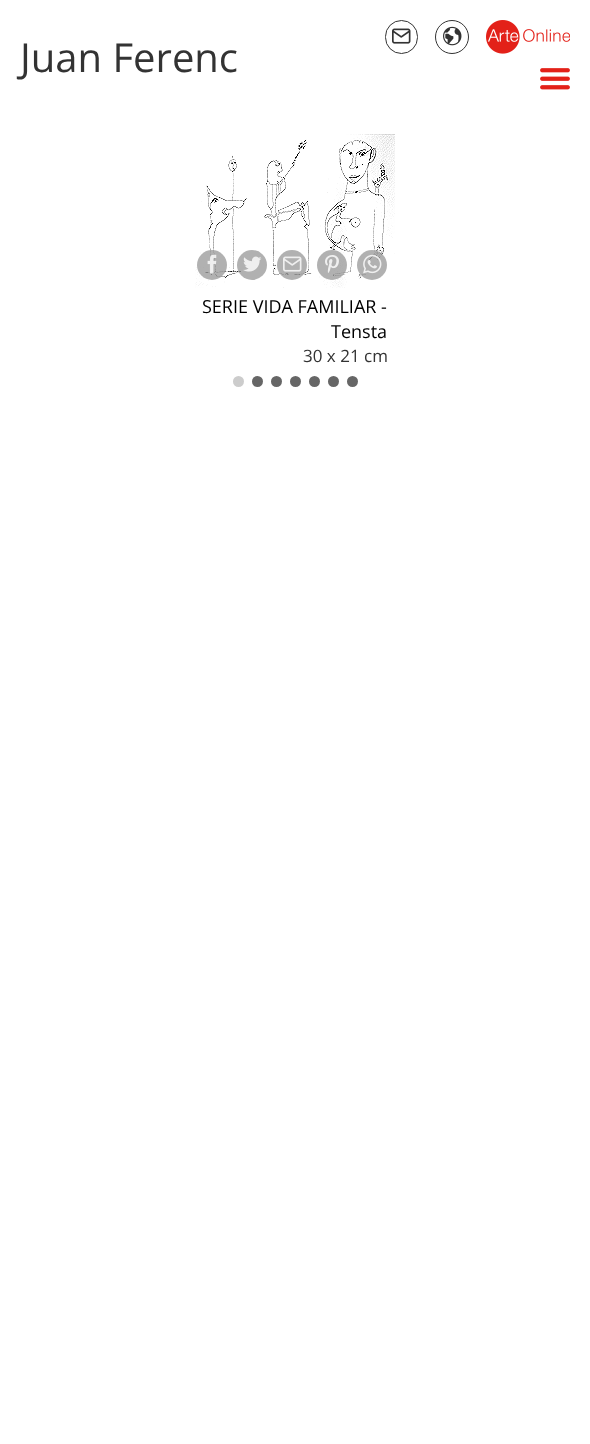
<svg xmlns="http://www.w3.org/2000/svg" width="590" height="1444">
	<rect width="100%" height="100%" fill="#FFFFFF" />
	<text x="20" y="72" font-family="Open Sans" font-size="40" fill="#333333">Juan Ferenc</text>
	<rect x="385.5" y="20.5" width="32" height="33" rx="16" fill="none" stroke="#333333" />
	<image x="392" y="28" width="19" height="16" href="assets/img1.png" />
	<circle cx="452" cy="37" r="16.5" fill="none" stroke="#333333" />
	<image x="443" y="26" width="19" height="20" href="assets/img2.png" />
	<image x="486" y="20" width="84" height="34" href="assets/img3.png" />
	<image x="540" y="68" width="30" height="22" href="assets/img4.png" />
	<image x="195" y="134" width="200" height="154" href="assets/img5.png" />
	<circle cx="212" cy="265" r="15" fill="#9E9E9E" fill-opacity="0.8" />
	<image x="207" y="254" width="10" height="20" href="assets/img6.png" />
	<circle cx="252" cy="265" r="15" fill="#9E9E9E" fill-opacity="0.8" />
	<image x="243" y="256" width="19" height="16" href="assets/img7.png" />
	<circle cx="292" cy="265" r="15" fill="#9E9E9E" fill-opacity="0.8" />
	<image x="283" y="256" width="19" height="16" href="assets/img8.png" />
	<circle cx="332" cy="265" r="15" fill="#9E9E9E" fill-opacity="0.8" />
	<image x="325" y="255" width="14" height="18" href="assets/img9.png" />
	<circle cx="372" cy="265" r="15" fill="#9E9E9E" fill-opacity="0.8" />
	<image x="363" y="254" width="19" height="20" href="assets/img10.png" />
	<g font-family="Open Sans" font-size="18" fill="#000000">
		<text x="202" y="313">SERIE VIDA FAMILIAR -</text>
		<text x="331" y="338">Tensta</text>
	</g>
	<text x="303" y="362" font-family="Open Sans" font-size="17" fill="#333333">30 x 21 cm</text>
	<circle cx="238.5" cy="381.5" r="5.5" fill="#CCCCCC" />
	<circle cx="257.5" cy="381.5" r="5.5" fill="#666666" />
	<circle cx="276.5" cy="381.5" r="5.5" fill="#666666" />
	<circle cx="295.5" cy="381.5" r="5.5" fill="#666666" />
	<circle cx="314.5" cy="381.5" r="5.5" fill="#666666" />
	<circle cx="333.5" cy="381.5" r="5.5" fill="#666666" />
	<circle cx="352.5" cy="381.5" r="5.5" fill="#666666" />
</svg>
